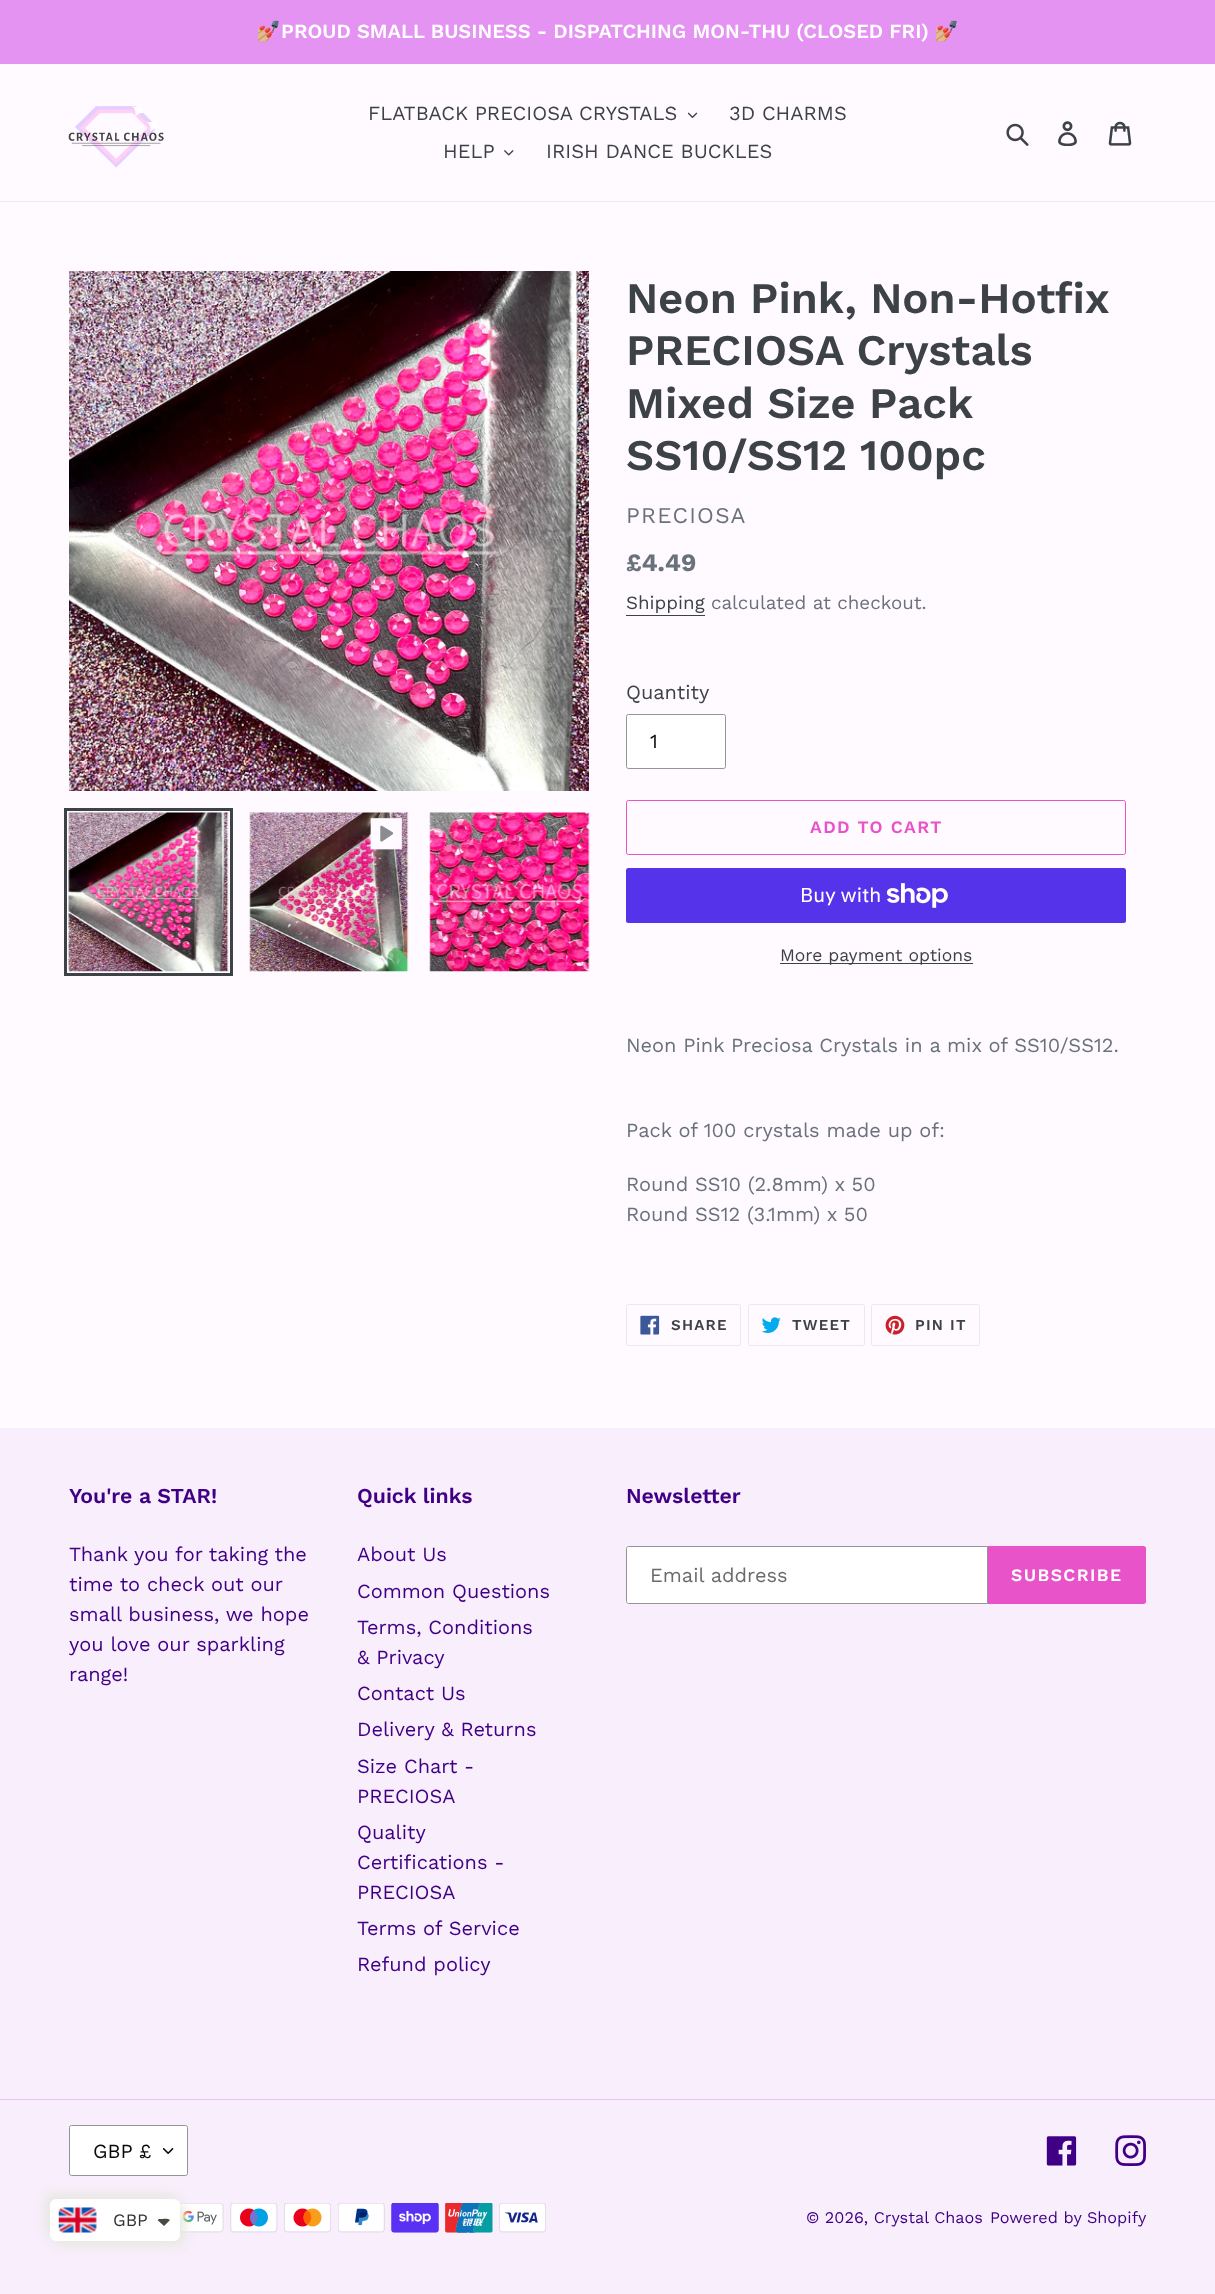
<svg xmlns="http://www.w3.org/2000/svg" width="1215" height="2294">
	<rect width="100%" height="100%" fill="#FFFAFF" />
	<rect x="0" y="0" width="1215" height="64" fill="#E493F3" />
	<text x="256" y="38" font-family="Noto Color Emoji" font-size="20" font-weight="700" fill="#FFFFFF">💅🏼</text>
	<text x="281" y="38" font-family="Work Sans" font-size="20" font-weight="600" fill="#FFFFFF">PROUD SMALL BUSINESS - DISPATCHING MON-THU (CLOSED FRI)</text>
	<text x="934" y="38" font-family="Noto Color Emoji" font-size="20" font-weight="700" fill="#FFFFFF">💅🏼</text>
	<rect x="0" y="201" width="1215" height="1" fill="#E8E9EB" />
	<image x="68" y="104" width="96" height="64" href="assets/img1.png" />
	<text x="368" y="120" font-family="Work Sans" font-size="20" fill="#3D4246">FLATBACK PRECIOSA CRYSTALS</text>
	<image x="688" y="112" width="10" height="6" href="assets/img2.png" />
	<g font-family="Work Sans" font-size="20" fill="#3D4246">
		<text x="729" y="120">3D CHARMS</text>
		<text x="443" y="158">HELP</text>
	</g>
	<image x="504" y="150" width="10" height="6" href="assets/img3.png" />
	<text x="546" y="158" font-family="Work Sans" font-size="20" fill="#3D4246">IRISH DANCE BUCKLES</text>
	<image x="1006" y="123" width="23" height="23" href="assets/img4.png" />
	<image x="1058" y="121" width="19" height="25" href="assets/img5.png" />
	<image x="1108" y="121" width="24" height="25" href="assets/img6.png" />
	<image x="69" y="271" width="520" height="520" href="assets/img7.png" />
	<rect x="65.5" y="809.5" width="166" height="165" fill="none" stroke="#3D4246" stroke-width="3" />
	<image x="68" y="812" width="161" height="160" href="assets/img8.png" />
	<image x="249" y="812" width="160" height="160" href="assets/img9.png" />
	<image x="370" y="818" width="32" height="32" href="assets/img10.png" />
	<image x="429" y="812" width="161" height="160" href="assets/img11.png" />
	<g font-family="Work Sans" font-size="43.75" font-weight="600" fill="#3D4246">
		<text x="626" y="313">Neon Pink, Non-Hotfix</text>
		<text x="626" y="365">PRECIOSA Crystals</text>
		<text x="626" y="418">Mixed Size Pack</text>
		<text x="626" y="470">SS10/SS12 100pc</text>
	</g>
	<text x="626" y="523" font-family="Work Sans" font-size="22.5" letter-spacing="1.25" fill="#69727B">PRECIOSA</text>
	<text x="626" y="571" font-family="Work Sans" font-size="25" font-weight="700" fill="#69727B">£4.49</text>
	<text x="626" y="609" font-family="Work Sans" font-size="18.75" fill="#3D4246">Shipping</text>
	<rect x="626" y="615" width="79" height="1" fill="#3D4246" />
	<text x="711" y="609" font-family="Work Sans" font-size="18.75" fill="#69727B">calculated at checkout.</text>
	<text x="626" y="699" font-family="Work Sans" font-size="20" fill="#3D4246">Quantity</text>
	<rect x="626.5" y="714.5" width="99" height="54" rx="2" fill="#FFFFFF" stroke="#949494" />
	<text x="650" y="748" font-family="Work Sans" font-size="20" fill="#080808">1</text>
	<rect x="626.5" y="800.5" width="499" height="54" rx="2" fill="none" stroke="#E953C9" />
	<text x="810" y="833" font-family="Work Sans" font-size="17.5" font-weight="600" letter-spacing="1.4" fill="#E953C9">ADD TO CART</text>
	<rect x="626" y="868" width="500" height="55" rx="2.5" fill="#5433EB" />
	<text x="800" y="902" font-family="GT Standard" font-size="20" fill="#FFFFFF">Buy with</text>
	<image x="886" y="883" width="62" height="25" href="assets/img12.png" />
	<rect x="780" y="963" width="193" height="1" fill="#3D4246" />
	<text x="780" y="961" font-family="Work Sans" font-size="17.5" fill="#3D4246">More payment options</text>
	<g font-family="Work Sans" font-size="20" fill="#69727B">
		<text x="626" y="1052">Neon Pink Preciosa Crystals in a mix of SS10/SS12.</text>
		<text x="626" y="1137">Pack of 100 crystals made up of:</text>
		<text x="626" y="1191">Round SS10 (2.8mm) x 50</text>
		<text x="626" y="1221">Round SS12 (3.1mm) x 50</text>
	</g>
	<rect x="626.5" y="1304.5" width="114" height="41" rx="2" fill="none" stroke="#E8E9EB" />
	<image x="640" y="1315" width="20" height="20" href="assets/img13.png" />
	<text x="671" y="1330" font-family="Work Sans" font-size="15" font-weight="600" letter-spacing="1.25" fill="#3D4246">SHARE</text>
	<rect x="748.5" y="1304.5" width="116" height="41" rx="2" fill="none" stroke="#E8E9EB" />
	<image x="761" y="1317" width="20" height="16" href="assets/img14.png" />
	<text x="792" y="1330" font-family="Work Sans" font-size="15" font-weight="600" letter-spacing="1.25" fill="#3D4246">TWEET</text>
	<rect x="871.5" y="1304.5" width="108" height="41" rx="2" fill="none" stroke="#E8E9EB" />
	<image x="885" y="1315" width="20" height="20" href="assets/img15.png" />
	<text x="915" y="1330" font-family="Work Sans" font-size="15" font-weight="600" letter-spacing="1.25" fill="#3D4246">PIN IT</text>
	<rect x="0" y="1428" width="1215" height="866" fill="#F8EEFC" />
	<text x="69" y="1503" font-family="Work Sans" font-size="21.25" font-weight="600" fill="#400086">You're a STAR!</text>
	<g font-family="Work Sans" font-size="20" fill="#400086">
		<text x="69" y="1561">Thank you for taking the</text>
		<text x="69" y="1591">time to check out our</text>
		<text x="69" y="1621">small business, we hope</text>
		<text x="69" y="1651">you love our sparkling</text>
		<text x="69" y="1681">range!</text>
	</g>
	<text x="357" y="1503" font-family="Work Sans" font-size="21.25" font-weight="600" fill="#400086">Quick links</text>
	<g font-family="Work Sans" font-size="20" fill="#400086">
		<text x="357" y="1561">About Us</text>
		<text x="357" y="1598">Common Questions</text>
		<text x="357" y="1634">Terms, Conditions</text>
		<text x="357" y="1664">&amp; Privacy</text>
		<text x="357" y="1700">Contact Us</text>
		<text x="357" y="1736">Delivery &amp; Returns</text>
		<text x="357" y="1773">Size Chart -</text>
		<text x="357" y="1803">PRECIOSA</text>
		<text x="357" y="1839">Quality</text>
		<text x="357" y="1869">Certifications -</text>
		<text x="357" y="1899">PRECIOSA</text>
		<text x="357" y="1935">Terms of Service</text>
		<text x="357" y="1971">Refund policy</text>
	</g>
	<text x="626" y="1503" font-family="Work Sans" font-size="21.25" font-weight="600" fill="#400086">Newsletter</text>
	<path d="M628.5 1546.5H987.5V1603.5H628.5C627.5 1603.5 626.5 1602.5 626.5 1601.5V1548.5C626.5 1547.5 627.5 1546.5 628.5 1546.5Z" fill="#FFFFFF" stroke="#949494" />
	<text x="650" y="1582" font-family="Work Sans" font-size="20" fill="#6B6B6B">Email address</text>
	<path d="M988 1546H1143.5C1145 1546 1146 1547 1146 1548.5V1601.5C1146 1603 1145 1604 1143.5 1604H988Z" fill="#E953C9" />
	<text x="1011" y="1581" font-family="Work Sans" font-size="17.5" font-weight="600" letter-spacing="1.4" fill="#FFFFFF">SUBSCRIBE</text>
	<rect x="0" y="2099" width="1215" height="1" fill="#E6C3F4" />
	<rect x="69" y="2125" width="119" height="51" rx="2.5" fill="#FFFFFF" />
	<image x="163" y="2148" width="11" height="6" href="assets/img16.png" />
	<rect x="69.5" y="2125.5" width="118" height="50" rx="2" fill="none" stroke="#949494" />
	<text x="93" y="2158" font-family="Work Sans" font-size="20" fill="#080808">GBP £</text>
	<image x="1046" y="2136" width="31" height="30" href="assets/img17.png" />
	<image x="1115" y="2135" width="31" height="31" href="assets/img18.png" />
	<image x="179" y="2203" width="45" height="30" href="assets/img19.png" />
	<image x="230" y="2203" width="48" height="30" href="assets/img20.png" />
	<image x="284" y="2203" width="47" height="30" href="assets/img21.png" />
	<image x="338" y="2203" width="47" height="30" href="assets/img22.png" />
	<image x="391" y="2203" width="48" height="30" href="assets/img23.png" />
	<image x="445" y="2203" width="48" height="30" href="assets/img24.png" />
	<image x="499" y="2203" width="47" height="30" href="assets/img25.png" />
	<g font-family="Work Sans" font-size="16.25" fill="#400086">
		<text x="806" y="2223">© 2026, Crystal Chaos</text>
		<text x="990" y="2223">Powered by Shopify</text>
	</g>
	<rect x="45" y="2194" width="130" height="42" rx="6" fill="#E8E8E2" filter="blur(5.5px)" />
	<rect x="55" y="2204" width="130" height="42" rx="6" fill="#E8E8E2" filter="blur(5.5px)" />
	<rect x="50" y="2199" width="130" height="42" rx="6" fill="#FFFFFF" />
	<image x="58" y="2207" width="39" height="26" href="assets/img26.png" />
	<text x="113" y="2226" font-family="Work Sans" font-size="17.5" fill="#333333">GBP</text>
	<path d="M160 2219C162.5 2219 168 2218 170 2220L164 2226L157.5 2220C158 2219.5 159 2219 160 2219Z" fill="#474942" />
</svg>
